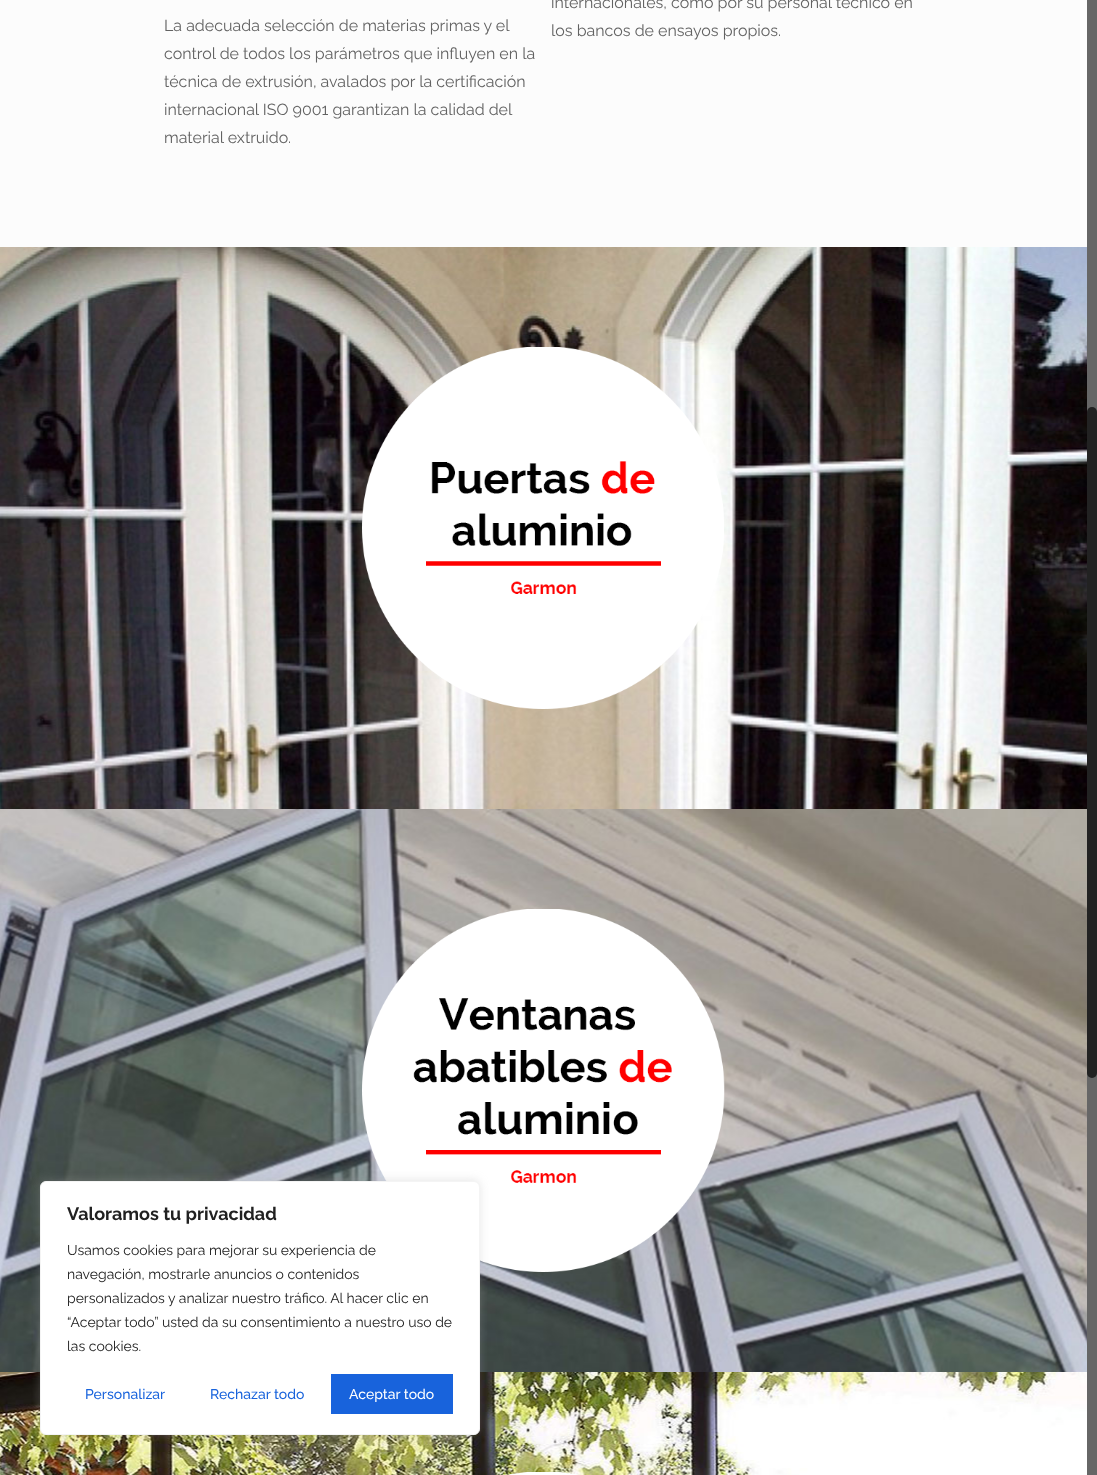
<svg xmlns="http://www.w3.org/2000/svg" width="1097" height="1475">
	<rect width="100%" height="100%" fill="#FCFCFC" />
	<g font-family="Raleway" font-size="16" fill="#626262">
		<text x="164" y="31">La adecuada selección de materias primas y el</text>
		<text x="164" y="59">control de todos los parámetros que influyen en la</text>
		<text x="164" y="87">técnica de extrusión, avalados por la certificación</text>
		<text x="164" y="115">internacional ISO 9001 garantizan la calidad del</text>
		<text x="164" y="143">material extruido.</text>
		<text x="551" y="8">internacionales, como por su personal técnico en</text>
		<text x="551" y="36">los bancos de ensayos propios.</text>
	</g>
	<image x="0" y="247" width="1087" height="562" href="assets/img1.png" />
	<image x="362" y="347" width="362" height="362" href="assets/img2.png" />
	<image x="0" y="809" width="1087" height="563" href="assets/img3.png" />
	<image x="362" y="909" width="363" height="363" href="assets/img4.png" />
	<image x="0" y="1372" width="1087" height="103" href="assets/img5.png" />
	<image x="507" y="1472" width="72" height="3" href="assets/img6.png" />
	<rect x="1087" y="0" width="10" height="1475" fill="#666666" />
	<rect x="1087" y="407" width="10" height="671" rx="5" fill="#222222" />
	<rect x="40" y="1180" width="440" height="254" rx="6" fill="#ACABAB" fill-opacity="0.3" filter="blur(5px)" />
	<rect x="40.5" y="1181.5" width="439" height="253" rx="5.5" fill="#FFFFFF" stroke="#F4F4F4" />
	<text x="67" y="1220" font-family="Raleway" font-size="18" font-weight="700" fill="#212121">Valoramos tu privacidad</text>
	<g font-family="Raleway" font-size="14" fill="#212121">
		<text x="67" y="1255">Usamos cookies para mejorar su experiencia de</text>
		<text x="67" y="1279">navegación, mostrarle anuncios o contenidos</text>
		<text x="67" y="1303">personalizados y analizar nuestro tráfico. Al hacer clic en</text>
		<text x="67" y="1327">“Aceptar todo” usted da su consentimiento a nuestro uso de</text>
		<text x="67" y="1351">las cookies.</text>
	</g>
	<g font-family="Raleway" font-size="14" font-weight="500" fill="#1863DC">
		<text x="85" y="1399">Personalizar</text>
		<text x="210" y="1399">Rechazar todo</text>
	</g>
	<rect x="331" y="1374" width="122" height="40" fill="#1863DC" />
	<text x="349" y="1399" font-family="Raleway" font-size="14" font-weight="500" fill="#FFFFFF">Aceptar todo</text>
</svg>
